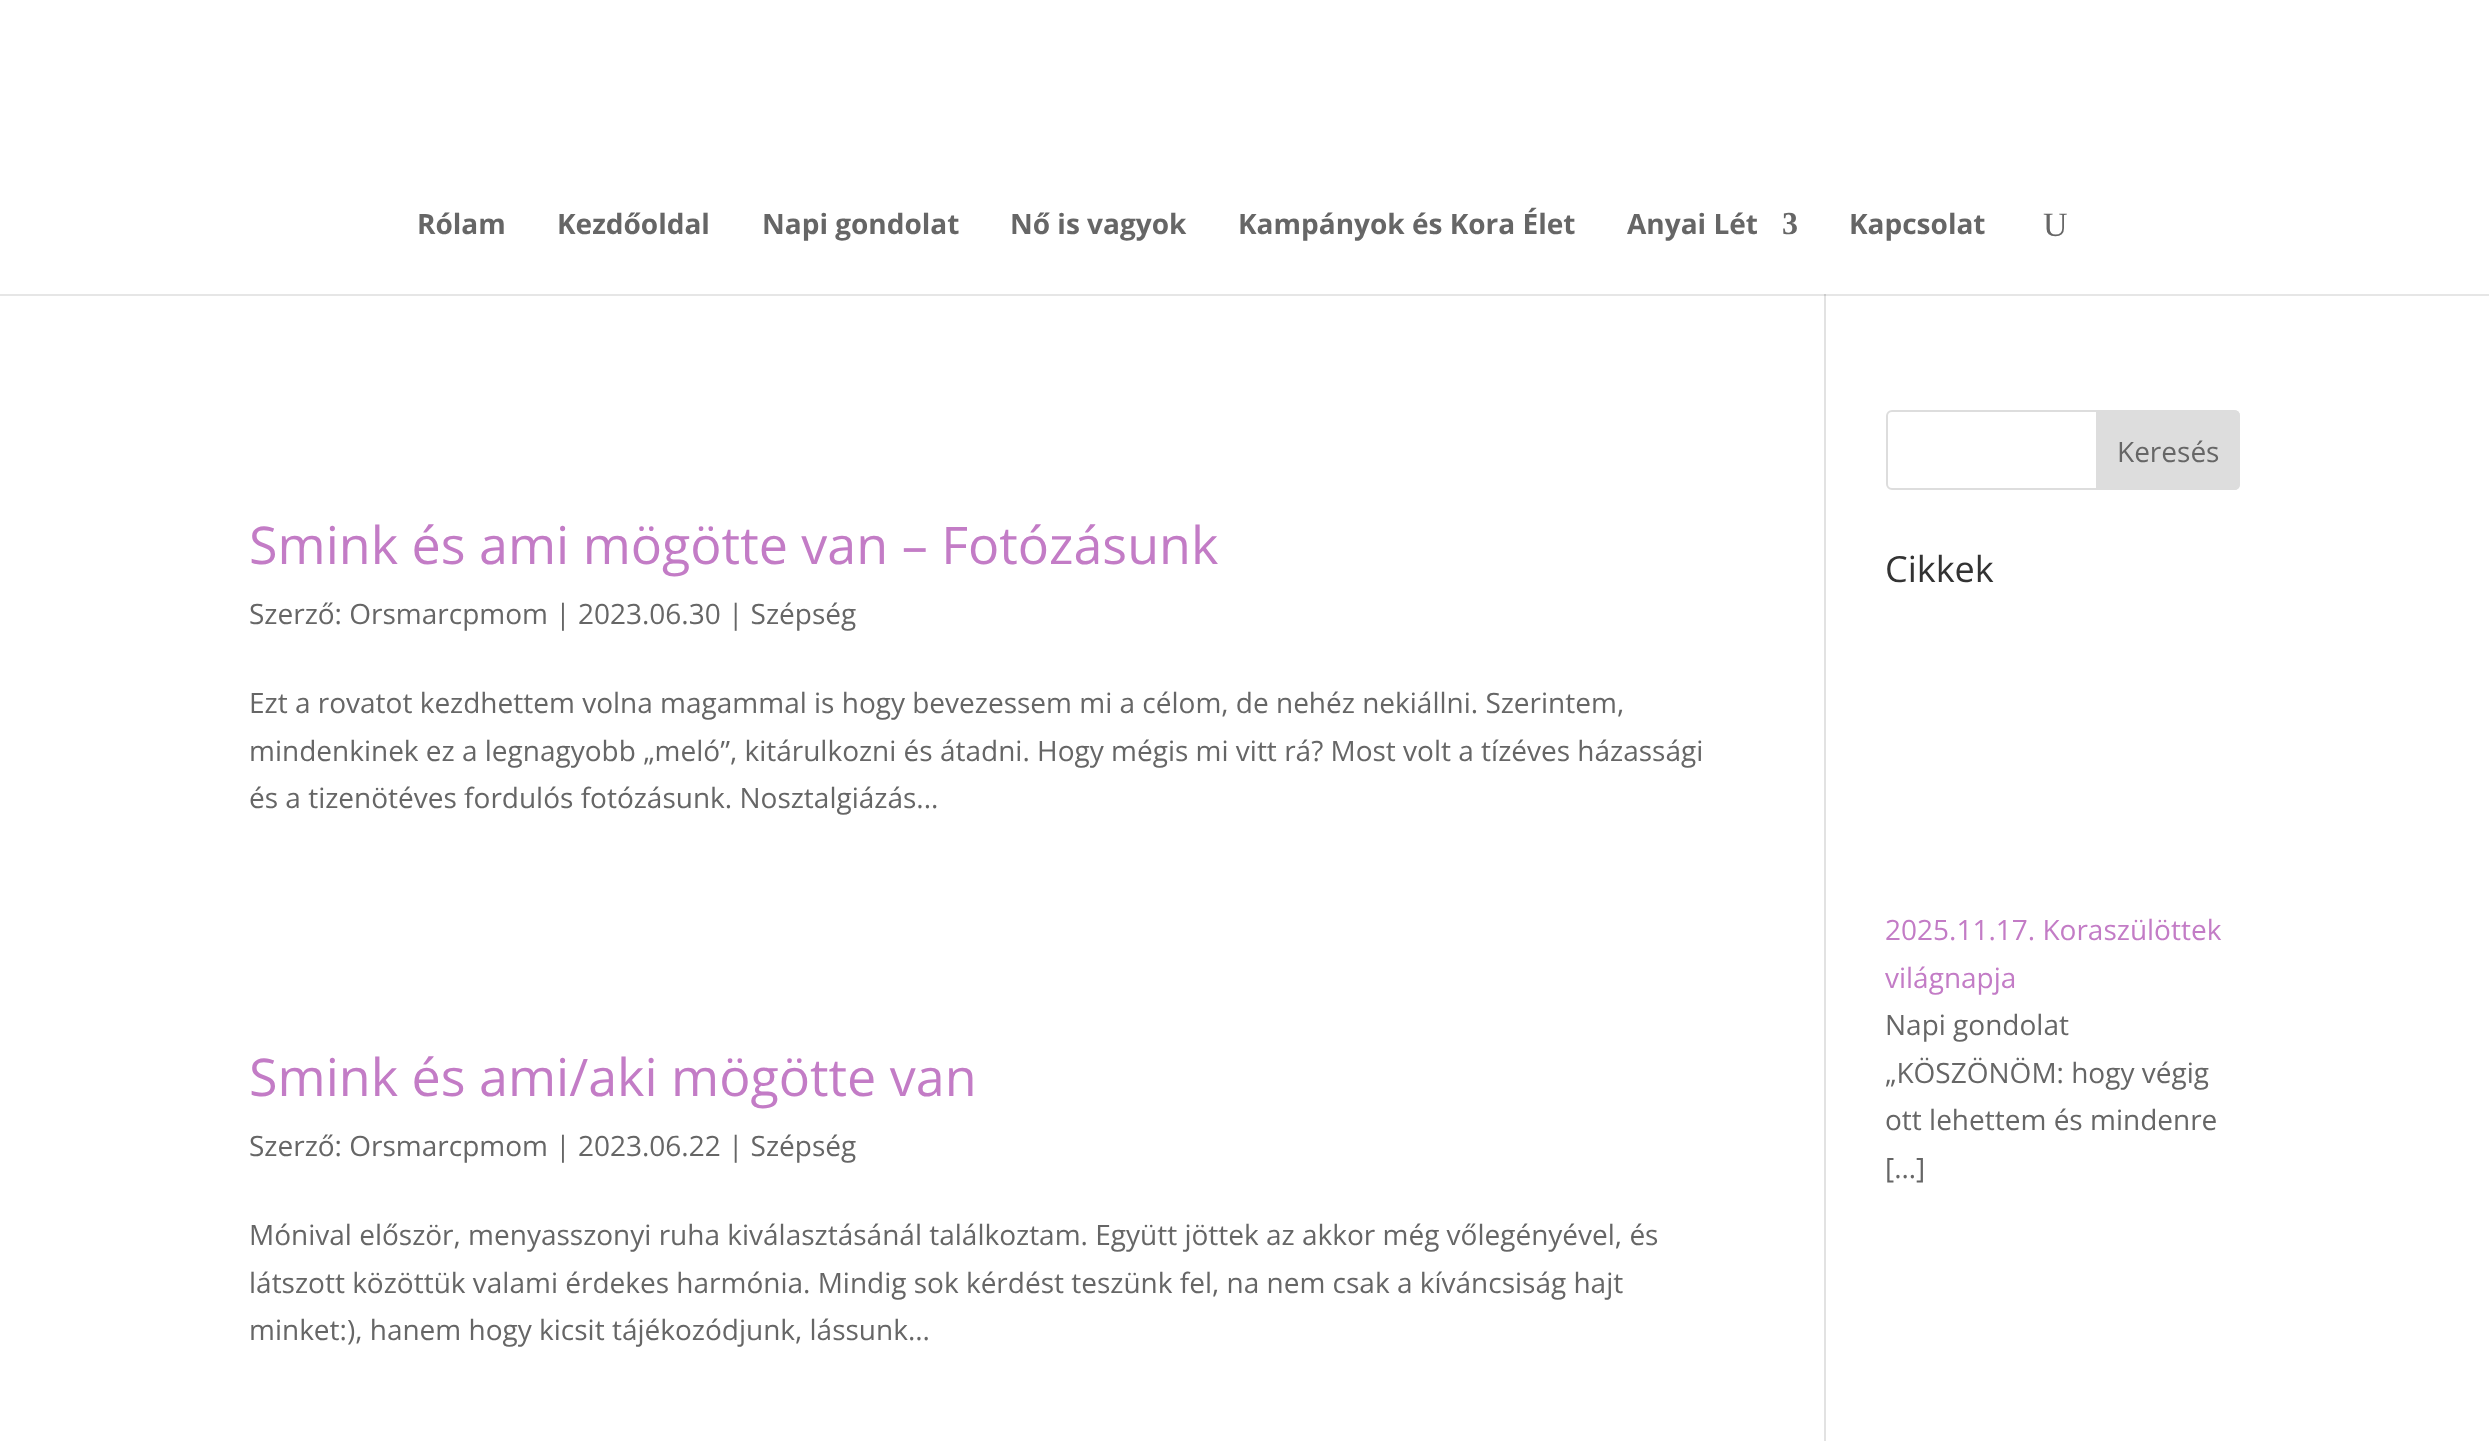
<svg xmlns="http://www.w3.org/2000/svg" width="2489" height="1441">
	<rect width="100%" height="100%" fill="#FFFFFF" />
	<g font-family="Open Sans" font-size="28" font-weight="700" fill="#666666">
		<text x="417" y="234">Rólam</text>
		<text x="557" y="234">Kezdőoldal</text>
		<text x="762" y="234">Napi gondolat</text>
		<text x="1010" y="234">Nő is vagyok</text>
		<text x="1238" y="234">Kampányok és Kora Élet</text>
		<text x="1627" y="234">Anyai Lét</text>
	</g>
	<text x="1782" y="234" font-family="Liberation Serif" font-size="32" font-weight="700" fill="#666666">3</text>
	<text x="1849" y="234" font-family="Open Sans" font-size="28" font-weight="700" fill="#666666">Kapcsolat</text>
	<text x="2043" y="236" font-family="Liberation Serif" font-size="34" fill="#666666">U</text>
	<rect x="0" y="294" width="2489" height="2" fill="#E6E6E6" />
	<rect x="1824" y="294" width="2" height="1147" fill="#E2E2E2" />
	<rect x="1824" y="294" width="2" height="2" fill="#CBCBCB" />
	<text x="249" y="564" font-family="Open Sans" font-size="52" fill="#C37CC6">Smink és ami mögötte van – Fotózásunk</text>
	<g font-family="Open Sans" font-size="28" fill="#666666">
		<text x="249" y="624">Szerző: Orsmarcpmom | 2023.06.30 | Szépség</text>
		<text x="249" y="713">Ezt a rovatot kezdhettem volna magammal is hogy bevezessem mi a célom, de nehéz nekiállni. Szerintem,</text>
		<text x="249" y="761">mindenkinek ez a legnagyobb „meló”, kitárulkozni és átadni. Hogy mégis mi vitt rá? Most volt a tízéves házassági</text>
		<text x="249" y="808">és a tizenötéves fordulós fotózásunk. Nosztalgiázás...</text>
	</g>
	<text x="249" y="1096" font-family="Open Sans" font-size="52" fill="#C37CC6">Smink és ami/aki mögötte van</text>
	<g font-family="Open Sans" font-size="28" fill="#666666">
		<text x="249" y="1156">Szerző: Orsmarcpmom | 2023.06.22 | Szépség</text>
		<text x="249" y="1245">Mónival először, menyasszonyi ruha kiválasztásánál találkoztam. Együtt jöttek az akkor még vőlegényével, és</text>
		<text x="249" y="1293">látszott közöttük valami érdekes harmónia. Mindig sok kérdést teszünk fel, na nem csak a kíváncsiság hajt</text>
		<text x="249" y="1340">minket:), hanem hogy kicsit tájékozódjunk, lássunk...</text>
	</g>
	<rect x="1887" y="411" width="352" height="78" rx="5" fill="none" stroke="#DDDDDD" stroke-width="2" />
	<path d="M2097 411H2234C2237 411 2239 413 2239 416V484C2239 487 2237 489 2234 489H2097Z" fill="#DDDDDD" stroke="#DDDDDD" stroke-width="2" />
	<text x="2117" y="462" font-family="Open Sans" font-size="28" fill="#666666">Keresés</text>
	<text x="1885" y="582" font-family="Open Sans" font-size="36" fill="#333333">Cikkek</text>
	<g font-family="Open Sans" font-size="28" fill="#C37CC6">
		<text x="1885" y="940">2025.11.17. Koraszülöttek</text>
		<text x="1885" y="988">világnapja</text>
	</g>
	<g font-family="Open Sans" font-size="28" fill="#666666">
		<text x="1885" y="1035">Napi gondolat</text>
		<text x="1885" y="1083">„KÖSZÖNÖM: hogy végig</text>
		<text x="1885" y="1130">ott lehettem és mindenre</text>
		<text x="1885" y="1178">[…]</text>
	</g>
</svg>
